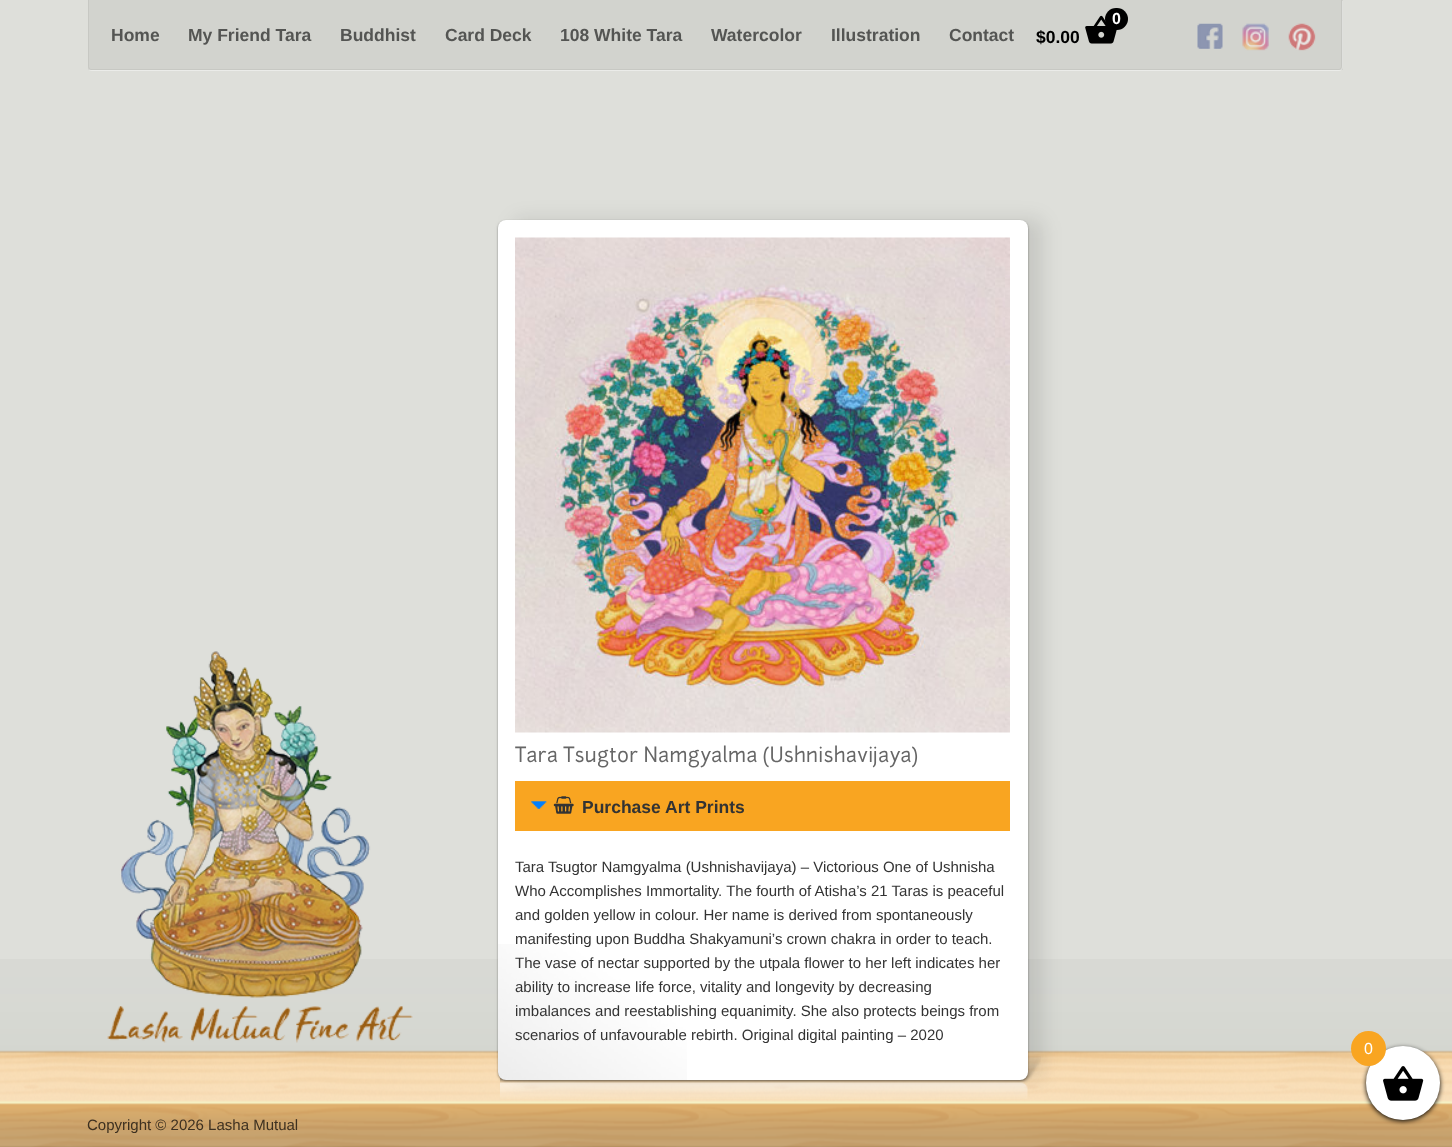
<svg xmlns="http://www.w3.org/2000/svg" width="1452" height="1147">
	<rect width="100%" height="100%" fill="#DEDFDA" />
	<path d="M88 69C89 70 90 71 92 71H1339C1341 71 1343 69 1343 67V1H1342V66C1342 68 1341 70 1339 70H91C90 70 89 69 88 69Z" fill="#EBECE9" />
	<rect x="88" y="0" width="1255" height="70" fill="#000000" fill-opacity="0.05" />
	<path d="M88 0H1342V66C1342 68 1341 70 1339 70H91C89 70 88 68 88 66ZM89 0H1341V66C1341 68 1340 69 1339 69H91C90 69 89 68 89 66Z" fill="#000000" fill-opacity="0.05" fill-rule="evenodd" />
	<g font-family="Liberation Sans" font-size="17.5" font-weight="700" fill="#545553">
		<text x="111" y="41">Home</text>
		<text x="188" y="41">My Friend Tara</text>
		<text x="340" y="41">Buddhist</text>
		<text x="445" y="41">Card Deck</text>
		<text x="560" y="41">108 White Tara</text>
		<text x="711" y="41">Watercolor</text>
		<text x="831" y="41">Illustration</text>
		<text x="949" y="41">Contact</text>
	</g>
	<image x="1085" y="15" width="32" height="29" href="assets/img1.png" />
	<rect x="1105" y="8" width="23" height="22" rx="11" fill="#000000" />
	<text x="1112" y="24" font-family="Liberation Sans" font-size="16" font-weight="700" fill="#FFFFFF">0</text>
	<text x="1036" y="43" font-family="Liberation Sans" font-size="17.5" font-weight="700" fill="#000000">$0.00</text>
	<image x="1197" y="23" width="26" height="26" href="assets/img2.png" />
	<image x="1242" y="23" width="27" height="28" href="assets/img3.png" />
	<image x="1288" y="23" width="28" height="28" href="assets/img4.png" />
	<image x="0" y="959" width="1452" height="188" href="assets/img11.png" />
	<image x="107" y="651" width="306" height="392" href="assets/img5.png" />
	<image x="500" y="1056" width="541" height="43" href="assets/img6.png" />
	<rect x="513" y="219" width="530" height="860" rx="8" fill="#000000" fill-opacity="0.1" filter="blur(9.5px)" />
	<rect x="498" y="221" width="530" height="860" rx="8" fill="#000000" fill-opacity="0.4" filter="blur(1px)" />
	<rect x="498" y="220" width="530" height="860" rx="8" fill="#FFFFFF" />
	<image x="498" y="944" width="189" height="136" href="assets/img7.png" />
	<image x="515" y="237" width="495" height="496" href="assets/img8.png" />
	<text x="515" y="762" font-family="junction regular" font-size="20" fill="#666666">Tara Tsugtor Namgyalma (Ushnishavijaya)</text>
	<rect x="515" y="781" width="495" height="50" fill="#F9A521" />
	<image x="531" y="801" width="16" height="8" href="assets/img9.png" />
	<image x="553" y="796" width="21" height="18" href="assets/img10.png" />
	<text x="582" y="813" font-family="Liberation Sans" font-size="17.5" font-weight="700" fill="#333333">Purchase Art Prints</text>
	<g font-family="Liberation Sans" font-size="15" fill="#333333">
		<text x="515" y="872">Tara Tsugtor Namgyalma (Ushnishavijaya) – Victorious One of Ushnisha</text>
		<text x="515" y="896">Who Accomplishes Immortality. The fourth of Atisha’s 21 Taras is peaceful</text>
		<text x="515" y="920">and golden yellow in colour. Her name is derived from spontaneously</text>
		<text x="515" y="944">manifesting upon Buddha Shakyamuni’s crown chakra in order to teach.</text>
		<text x="515" y="968">The vase of nectar supported by the utpala flower to her left indicates her</text>
		<text x="515" y="992">ability to increase life force, vitality and longevity by decreasing</text>
		<text x="515" y="1016">imbalances and reestablishing equanimity. She also protects beings from</text>
		<text x="515" y="1040">scenarios of unfavourable rebirth. Original digital painting – 2020</text>
	</g>
	<rect x="1366" y="1048" width="74" height="73" rx="36.5" fill="#000000" filter="blur(2.5px)" />
	<circle cx="1403" cy="1083" r="37" fill="#FFFFFF" />
	<circle cx="1368.5" cy="1048.5" r="17.5" fill="#F9A521" />
	<text x="1364" y="1054" font-family="Liberation Sans" font-size="16" fill="#FFFFFF">0</text>
	<image x="1383" y="1066" width="41" height="35" href="assets/img12.png" />
	<text x="87" y="1130" font-family="Liberation Sans" font-size="15" fill="#3D3020">Copyright © 2026 Lasha Mutual</text>
</svg>
